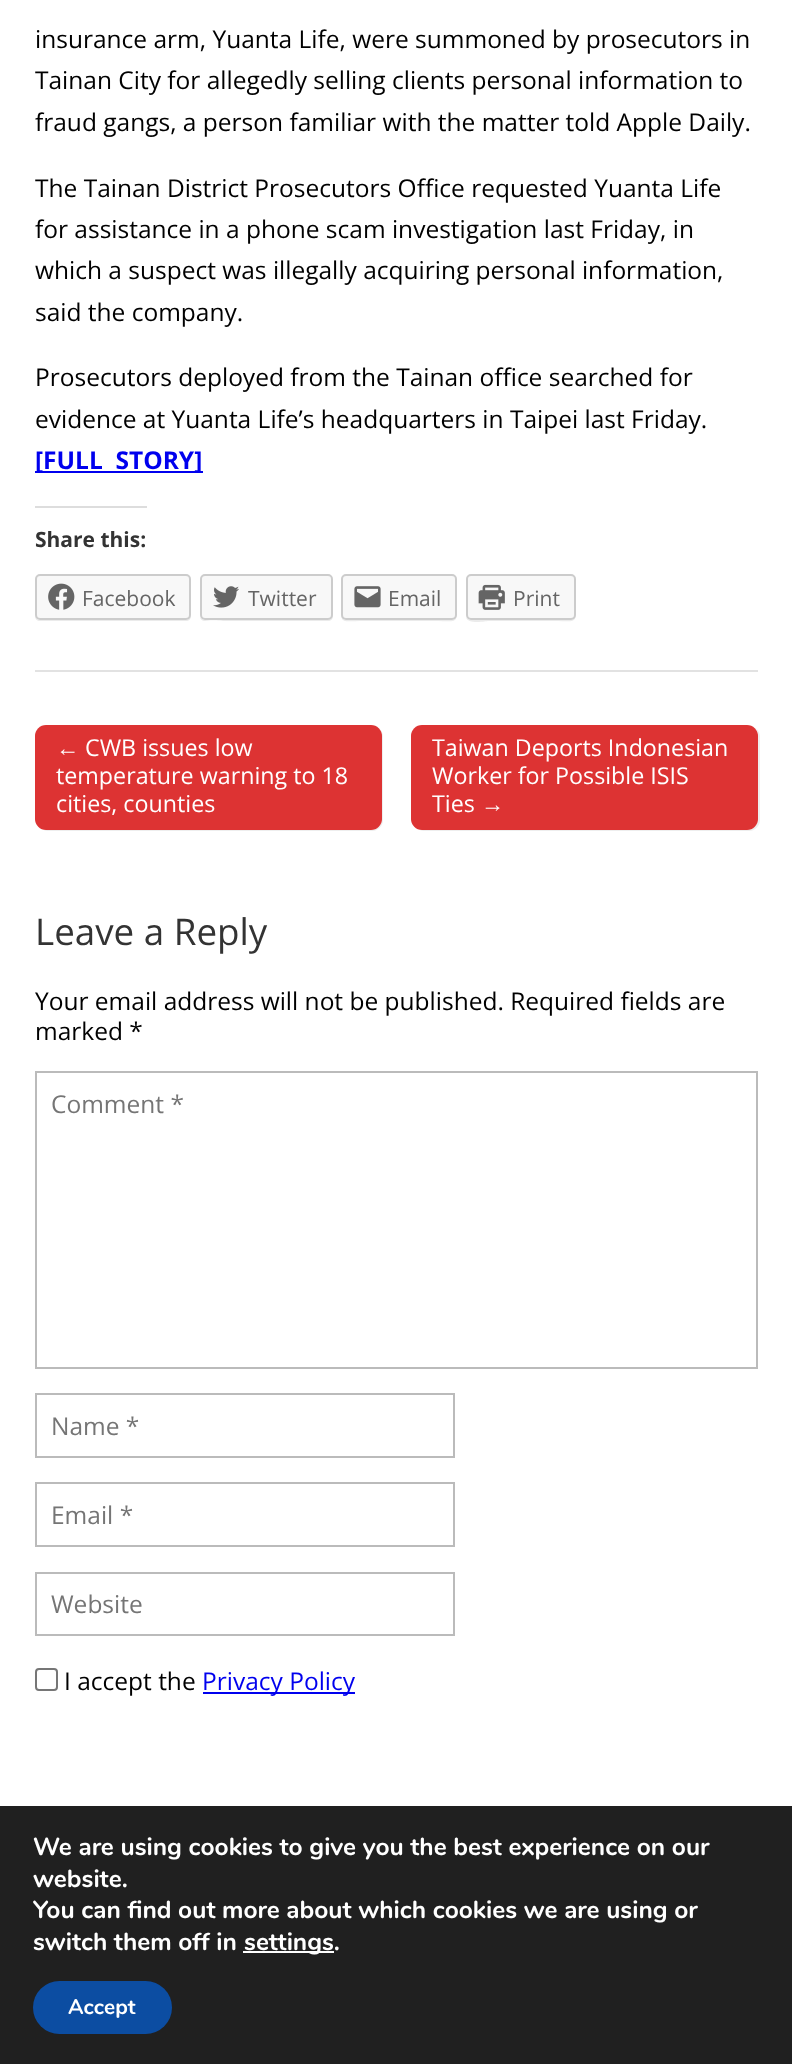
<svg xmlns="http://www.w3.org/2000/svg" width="792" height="2064">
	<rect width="100%" height="100%" fill="#FFFFFF" />
	<rect x="35" y="670" width="723" height="2" fill="#E2E2E2" />
	<g font-family="Open Sans" font-size="24.5" fill="#000000">
		<text x="35" y="48">insurance arm, Yuanta Life, were summoned by prosecutors in</text>
		<text x="35" y="89">Tainan City for allegedly selling clients personal information to</text>
		<text x="35" y="131">fraud gangs, a person familiar with the matter told Apple Daily.</text>
		<text x="35" y="197">The Tainan District Prosecutors Office requested Yuanta Life</text>
		<text x="35" y="238">for assistance in a phone scam investigation last Friday, in</text>
		<text x="35" y="279">which a suspect was illegally acquiring personal information,</text>
		<text x="35" y="321">said the company.</text>
		<text x="35" y="386">Prosecutors deployed from the Tainan office searched for</text>
		<text x="35" y="428">evidence at Yuanta Life’s headquarters in Taipei last Friday.</text>
	</g>
	<rect x="35" y="471" width="168" height="2" fill="#0000EE" />
	<text x="35" y="469" font-family="Open Sans" font-size="24.5" font-weight="700" fill="#0000EE" xml:space="preserve">[FULL  STORY]</text>
	<rect x="35" y="506" width="112" height="2" fill="#DDDDDD" />
	<text x="35" y="547" font-family="Open Sans" font-size="21" font-weight="700" fill="#333333">Share this:</text>
	<path d="M35 614V616C35 619 37 621 40 621H186C189 621 191 619 191 616V579V614C191 617 188 620 186 620H40C37 620 35 617 35 614Z" fill="#EBEBEB" />
	<rect x="36" y="575" width="154" height="44" rx="4" fill="#F8F8F8" stroke="#CCCCCC" stroke-width="2" />
	<image x="48" y="583" width="27" height="27" href="assets/img1.png" />
	<text x="82" y="606" font-family="Open Sans" font-size="21" fill="#656565">Facebook</text>
	<path d="M200 617C200 619 202 621 205 621H328C331 621 333 619 333 616V581L332 579V608C332 612 333 619 327 620H225C222 620 203 623 200 617Z" fill="#EBEBEB" />
	<rect x="201" y="575" width="131" height="44" rx="4" fill="#F8F8F8" stroke="#CCCCCC" stroke-width="2" />
	<image x="213" y="586" width="26" height="22" href="assets/img2.png" />
	<text x="248" y="606" font-family="Open Sans" font-size="21" fill="#656565">Twitter</text>
	<path d="M341 579V604C341 625 340 621 364 621H434C458 621 457 625 457 604V579V614C457 617 454 620 452 620H346C344 620 341 617 341 614Z" fill="#EBEBEB" />
	<rect x="342" y="575" width="114" height="44" rx="4" fill="#F8F8F8" stroke="#CCCCCC" stroke-width="2" />
	<image x="354" y="586" width="27" height="22" href="assets/img3.png" />
	<text x="388" y="606" font-family="Open Sans" font-size="21" fill="#656565">Email</text>
	<path d="M466 617C467 625 487 621 488 621H554C577 621 576 625 576 604V579V614C576 617 573 620 570 620H471C469 620 467 618 466 617Z" fill="#EBEBEB" />
	<rect x="467" y="575" width="108" height="44" rx="4" fill="#F8F8F8" stroke="#CCCCCC" stroke-width="2" />
	<image x="478" y="584" width="27" height="26" href="assets/img4.png" />
	<text x="513" y="606" font-family="Open Sans" font-size="21" fill="#656565">Print</text>
	<path d="M41 828C43 830 45 831 48 831H372C378 831 383 826 383 820V737C383 734 382 731 380 729C381 731 382 733 382 735V819C382 825 377 830 371 830H46C44 830 42 829 41 828Z" fill="#EEEEEE" />
	<rect x="35" y="725" width="347" height="105" rx="11" fill="#DD3333" />
	<text x="56" y="756" font-family="Liberation Sans" font-size="23.25" fill="#FFFFFF">←</text>
	<g font-family="Open Sans" font-size="23.25" fill="#FFFFFF">
		<text x="85" y="756">CWB issues low</text>
		<text x="56" y="784">temperature warning to 18</text>
		<text x="56" y="812">cities, counties</text>
	</g>
	<path d="M417 828C419 830 421 831 424 831H749C755 831 760 826 760 820V737C760 733 758 729 755 728C757 729 758 732 758 735V819C758 825 753 830 747 830H422C420 830 418 829 417 828Z" fill="#EEEEEE" />
	<rect x="411" y="725" width="347" height="105" rx="11" fill="#DD3333" />
	<g font-family="Open Sans" font-size="23.25" fill="#FFFFFF">
		<text x="432" y="756">Taiwan Deports Indonesian</text>
		<text x="432" y="784">Worker for Possible ISIS</text>
		<text x="432" y="812">Ties</text>
	</g>
	<text x="481" y="812" font-family="Liberation Sans" font-size="23.25" fill="#FFFFFF">→</text>
	<text x="35" y="945" font-family="Open Sans" font-size="36.75" fill="#333333">Leave a Reply</text>
	<g font-family="Open Sans" font-size="24.5" fill="#000000">
		<text x="35" y="1010">Your email address will not be published. Required fields are</text>
		<text x="35" y="1040">marked *</text>
	</g>
	<rect x="36" y="1072" width="721" height="296" fill="none" stroke="#BBBBBB" stroke-width="2" />
	<text x="51" y="1113" font-family="Open Sans" font-size="24.5" fill="#757575">Comment *</text>
	<rect x="36" y="1394" width="418" height="63" fill="none" stroke="#BBBBBB" stroke-width="2" />
	<text x="51" y="1435" font-family="Open Sans" font-size="24.5" fill="#757575">Name *</text>
	<rect x="36" y="1483" width="418" height="63" fill="none" stroke="#BBBBBB" stroke-width="2" />
	<text x="51" y="1524" font-family="Open Sans" font-size="24.5" fill="#757575">Email *</text>
	<rect x="36" y="1573" width="418" height="62" fill="none" stroke="#BBBBBB" stroke-width="2" />
	<text x="51" y="1613" font-family="Open Sans" font-size="24.5" fill="#757575">Website</text>
	<rect x="36" y="1669" width="21" height="21" rx="3" fill="none" stroke="#767676" stroke-width="2" />
	<text x="64" y="1690" font-family="Open Sans" font-size="24.5" fill="#000000">I accept the</text>
	<rect x="203" y="1692" width="152" height="2" fill="#0000EE" />
	<text x="202" y="1690" font-family="Open Sans" font-size="24.5" fill="#0000EE">Privacy Policy</text>
	<rect x="0" y="1806" width="792" height="258" fill="#202020" />
	<g font-family="Nunito" font-size="24.5" font-weight="700" fill="#FFFFFF">
		<text x="33" y="1855">We are using cookies to give you the best experience on our</text>
		<text x="33" y="1887">website.</text>
		<text x="33" y="1918">You can find out more about which cookies we are using or</text>
		<text x="33" y="1950">switch them off in</text>
	</g>
	<rect x="243" y="1951" width="91" height="2" fill="#FFFFFF" />
	<text x="244" y="1950" font-family="Nunito" font-size="24.5" font-weight="700" fill="#FFFFFF">settings.</text>
	<rect x="33" y="1981" width="139" height="53" rx="26.5" fill="#0C4DA2" />
	<text x="68" y="2014" font-family="Nunito" font-size="21" font-weight="700" fill="#FFFFFF">Accept</text>
</svg>
